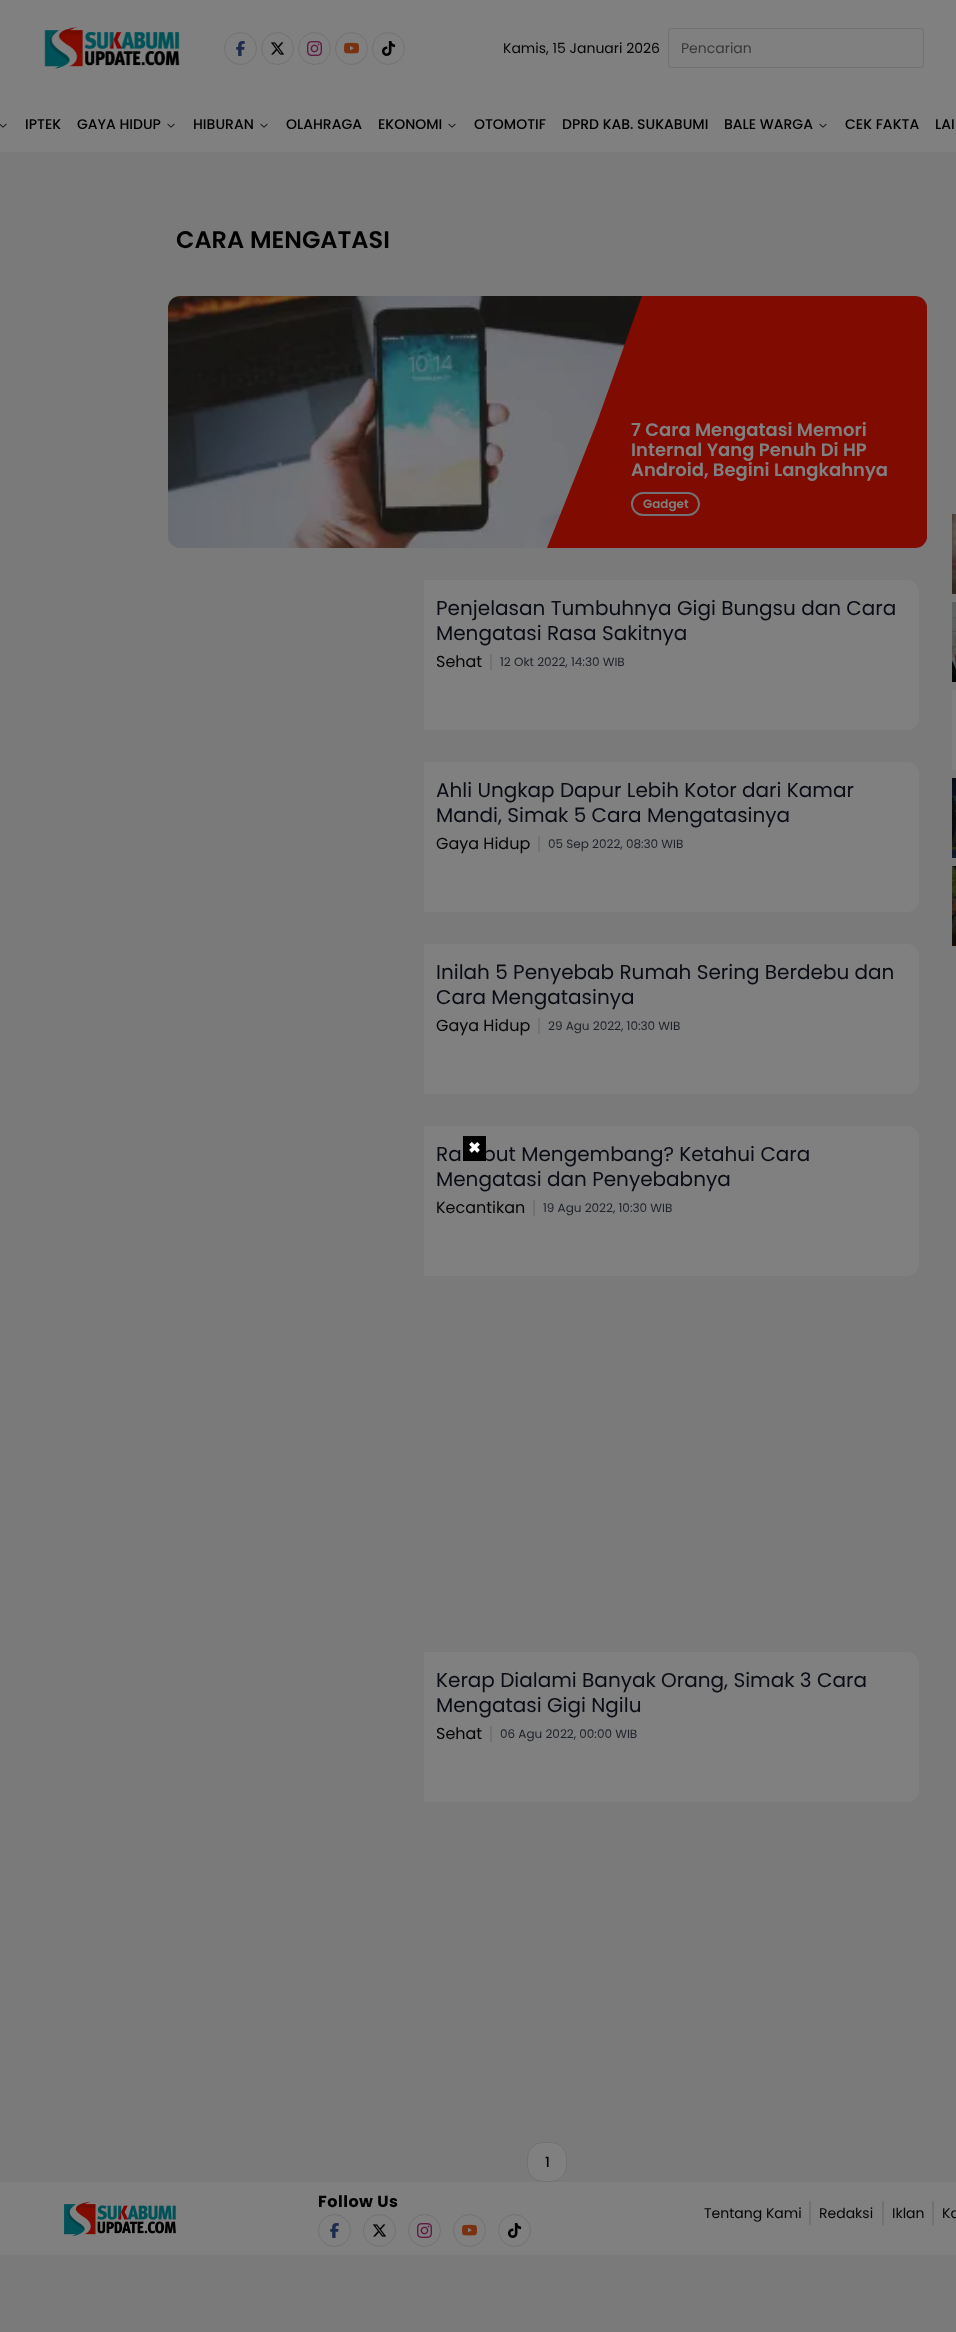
<svg xmlns="http://www.w3.org/2000/svg" width="956" height="2332">
	<rect width="100%" height="100%" fill="#7A7A7B" />
	<rect x="0" y="0" width="956" height="152" fill="#808080" />
	<image x="44" y="27" width="136" height="42" href="assets/img1.png" />
	<circle cx="240.5" cy="48.5" r="16" fill="none" stroke="#727274" />
	<image x="236" y="41" width="9" height="15" href="assets/img2.png" />
	<circle cx="277.5" cy="48.5" r="16" fill="none" stroke="#727274" />
	<image x="270" y="42" width="15" height="13" href="assets/img3.png" />
	<circle cx="314.5" cy="48.5" r="16" fill="none" stroke="#727274" />
	<image x="307" y="41" width="15" height="15" href="assets/img4.png" />
	<circle cx="351.5" cy="48.5" r="16" fill="none" stroke="#727274" />
	<image x="344" y="42" width="15" height="12" href="assets/img5.png" />
	<circle cx="388.5" cy="48.5" r="16" fill="none" stroke="#727274" />
	<image x="382" y="41" width="14" height="15" href="assets/img6.png" />
	<text x="503" y="53" font-family="Poppins" font-size="14" fill="#050506">Kamis, 15 Januari 2026</text>
	<rect x="668.5" y="28.5" width="255" height="39" rx="2.5" fill="none" stroke="#727274" />
	<text x="681" y="53" font-family="Poppins" font-size="14" fill="#39393D">Pencarian</text>
	<image x="0" y="123" width="7" height="5" href="assets/img7.png" />
	<g font-family="Poppins" font-size="14" font-weight="500" fill="#000000">
		<text x="25" y="129">IPTEK</text>
		<text x="77" y="129">GAYA HIDUP</text>
	</g>
	<image x="167" y="123" width="8" height="5" href="assets/img8.png" />
	<text x="193" y="129" font-family="Poppins" font-size="14" font-weight="500" fill="#000000">HIBURAN</text>
	<image x="260" y="123" width="8" height="5" href="assets/img8.png" />
	<g font-family="Poppins" font-size="14" font-weight="500" fill="#000000">
		<text x="286" y="129">OLAHRAGA</text>
		<text x="378" y="129">EKONOMI</text>
	</g>
	<image x="448" y="123" width="8" height="5" href="assets/img8.png" />
	<g font-family="Poppins" font-size="14" font-weight="500" fill="#000000">
		<text x="474" y="129">OTOMOTIF</text>
		<text x="562" y="129">DPRD KAB. SUKABUMI</text>
		<text x="724" y="129">BALE WARGA</text>
	</g>
	<image x="819" y="123" width="8" height="5" href="assets/img8.png" />
	<g font-family="Poppins" font-size="14" font-weight="500" fill="#000000">
		<text x="845" y="129">CEK FAKTA</text>
		<text x="935" y="129">LAI</text>
	</g>
	<text x="176" y="248" font-family="Poppins" font-size="24" font-weight="600" fill="#000000">CARA MENGATASI</text>
	<image x="168" y="296" width="474" height="252" href="assets/img9.png" />
	<path d="M547 548H915C921 548 926 544 927 538V306C926 300 921 296 915 296H642L597 422Z" fill="#800B00" />
	<g font-family="Poppins" font-size="18" font-weight="600" fill="#808080">
		<text x="631" y="436">7 Cara Mengatasi Memori</text>
		<text x="631" y="456">Internal Yang Penuh Di HP</text>
		<text x="631" y="476">Android, Begini Langkahnya</text>
	</g>
	<rect x="632" y="493" width="67" height="22" rx="11" fill="none" stroke="#727274" stroke-width="2" />
	<text x="643" y="508" font-family="Poppins" font-size="12" font-weight="600" fill="#808080">Gadget</text>
	<path d="M424 580H907C913.5 580 919 585.5 919 592V718C919 724.5 913.5 730 907 730H424Z" fill="#808080" />
	<g font-family="Poppins" font-size="20" fill="#090C14">
		<text x="436" y="615">Penjelasan Tumbuhnya Gigi Bungsu dan Cara</text>
		<text x="436" y="640">Mengatasi Rasa Sakitnya</text>
	</g>
	<text x="436" y="667" font-family="Poppins" font-size="16" fill="#050506">Sehat</text>
	<rect x="490" y="654" width="2" height="16" fill="#727274" />
	<text x="500" y="666" font-family="Poppins" font-size="12" fill="#1C2129">12 Okt 2022, 14:30 WIB</text>
	<path d="M424 762H907C913.5 762 919 767.5 919 774V900C919 906.5 913.5 912 907 912H424Z" fill="#808080" />
	<g font-family="Poppins" font-size="20" fill="#090C14">
		<text x="436" y="797">Ahli Ungkap Dapur Lebih Kotor dari Kamar</text>
		<text x="436" y="822">Mandi, Simak 5 Cara Mengatasinya</text>
	</g>
	<text x="436" y="849" font-family="Poppins" font-size="16" fill="#050506">Gaya Hidup</text>
	<rect x="538" y="836" width="2" height="16" fill="#727274" />
	<text x="548" y="848" font-family="Poppins" font-size="12" fill="#1C2129">05 Sep 2022, 08:30 WIB</text>
	<path d="M424 944H907C913.5 944 919 949.5 919 956V1082C919 1088.5 913.5 1094 907 1094H424Z" fill="#808080" />
	<g font-family="Poppins" font-size="20" fill="#090C14">
		<text x="436" y="979">Inilah 5 Penyebab Rumah Sering Berdebu dan</text>
		<text x="436" y="1004">Cara Mengatasinya</text>
	</g>
	<text x="436" y="1031" font-family="Poppins" font-size="16" fill="#050506">Gaya Hidup</text>
	<rect x="538" y="1018" width="2" height="16" fill="#727274" />
	<text x="548" y="1030" font-family="Poppins" font-size="12" fill="#1C2129">29 Agu 2022, 10:30 WIB</text>
	<path d="M424 1126H907C913.5 1126 919 1131.5 919 1138V1264C919 1270.5 913.5 1276 907 1276H424Z" fill="#808080" />
	<g font-family="Poppins" font-size="20" fill="#090C14">
		<text x="436" y="1161">Rambut Mengembang? Ketahui Cara</text>
		<text x="436" y="1186">Mengatasi dan Penyebabnya</text>
	</g>
	<text x="436" y="1213" font-family="Poppins" font-size="16" fill="#050506">Kecantikan</text>
	<rect x="533" y="1200" width="2" height="16" fill="#727274" />
	<text x="543" y="1212" font-family="Poppins" font-size="12" fill="#1C2129">19 Agu 2022, 10:30 WIB</text>
	<path d="M424 1652H907C913.5 1652 919 1657.5 919 1664V1790C919 1796.5 913.5 1802 907 1802H424Z" fill="#808080" />
	<g font-family="Poppins" font-size="20" fill="#090C14">
		<text x="436" y="1687">Kerap Dialami Banyak Orang, Simak 3 Cara</text>
		<text x="436" y="1712">Mengatasi Gigi Ngilu</text>
	</g>
	<text x="436" y="1739" font-family="Poppins" font-size="16" fill="#050506">Sehat</text>
	<rect x="490" y="1726" width="2" height="16" fill="#727274" />
	<text x="500" y="1738" font-family="Poppins" font-size="12" fill="#1C2129">06 Agu 2022, 00:00 WIB</text>
	<rect x="527.5" y="2142.5" width="39" height="39" rx="15.5" fill="#808080" stroke="#727274" />
	<text x="545" y="2167" font-family="Poppins" font-size="14" font-weight="500" fill="#050506">1</text>
	<image x="952" y="514" width="4" height="80" href="assets/img10.png" />
	<image x="952" y="602" width="4" height="80" href="assets/img11.png" />
	<rect x="952" y="690" width="4" height="80" fill="#808080" />
	<image x="952" y="778" width="4" height="80" href="assets/img12.png" />
	<image x="952" y="866" width="4" height="80" href="assets/img13.png" />
	<rect x="0" y="2182" width="956" height="73" fill="#808080" />
	<image x="64" y="2201" width="112" height="36" href="assets/img14.png" />
	<text x="318" y="2207" font-family="Poppins" font-size="16" font-weight="700" letter-spacing="0.5" fill="#000000">Follow Us</text>
	<circle cx="334.5" cy="2230.5" r="16" fill="none" stroke="#727274" />
	<image x="330" y="2223" width="9" height="15" href="assets/img2.png" />
	<circle cx="379.5" cy="2230.5" r="16" fill="none" stroke="#727274" />
	<image x="372" y="2224" width="15" height="13" href="assets/img3.png" />
	<circle cx="424.5" cy="2230.5" r="16" fill="none" stroke="#727274" />
	<image x="417" y="2223" width="15" height="15" href="assets/img4.png" />
	<circle cx="469.5" cy="2230.5" r="16" fill="none" stroke="#727274" />
	<image x="462" y="2224" width="15" height="12" href="assets/img5.png" />
	<circle cx="514.5" cy="2230.5" r="16" fill="none" stroke="#727274" />
	<image x="508" y="2223" width="14" height="15" href="assets/img6.png" />
	<text x="704" y="2218" font-family="Poppins" font-size="14" fill="#050506">Tentang Kami</text>
	<rect x="809" y="2201" width="2" height="24" fill="#727274" />
	<text x="819" y="2218" font-family="Poppins" font-size="14" fill="#050506">Redaksi</text>
	<rect x="882" y="2201" width="2" height="24" fill="#727274" />
	<text x="892" y="2218" font-family="Poppins" font-size="14" fill="#050506">Iklan</text>
	<rect x="932" y="2201" width="2" height="24" fill="#727274" />
	<text x="942" y="2218" font-family="Poppins" font-size="14" fill="#050506">Ka</text>
	<rect x="463" y="1136" width="23" height="25" fill="#000000" />
	<text x="468" y="1153" font-family="DejaVu Sans" font-size="15" font-weight="700" fill="#FFFFFF">✖</text>
</svg>
